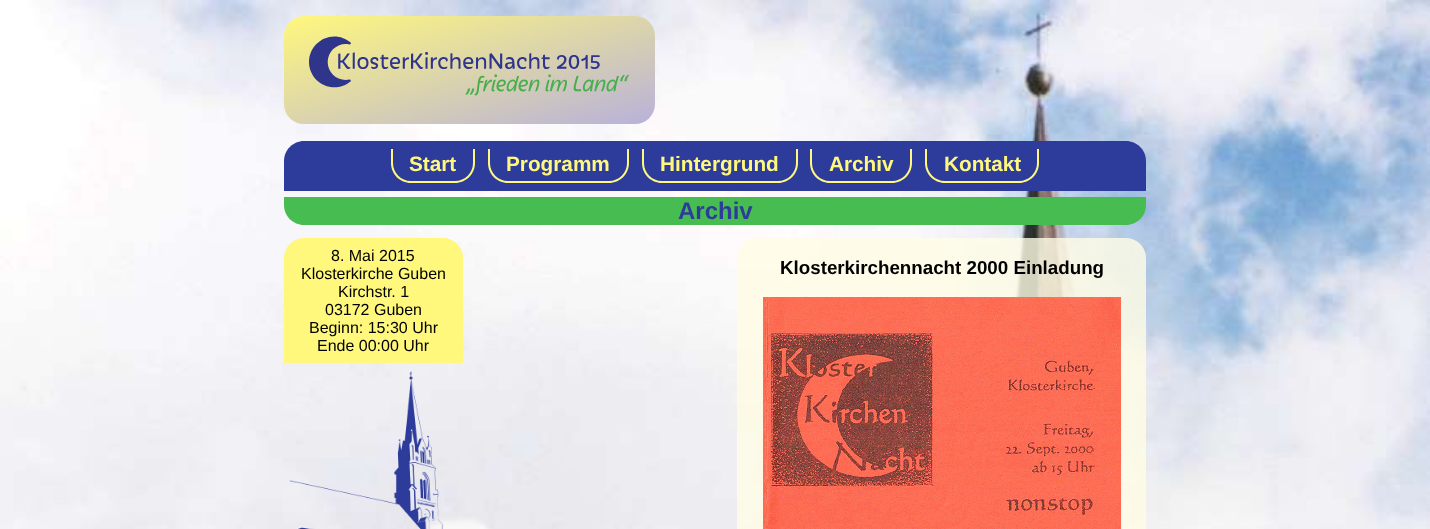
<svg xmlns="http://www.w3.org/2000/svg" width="1430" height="529">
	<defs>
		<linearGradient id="g1" gradientUnits="userSpaceOnUse" x1="441" y1="-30" x2="498" y2="170"><stop offset="0" stop-color="#FFF87D" /><stop offset="1" stop-color="#B8B1DA" /></linearGradient>
	</defs>
	<rect width="100%" height="100%" fill="#FFFFFF" />
	<image x="0" y="0" width="1430" height="529" href="assets/img1.png" />
	<rect x="284" y="16" width="371" height="108" rx="20" fill="url(#g1)" />
	<image x="309" y="36" width="320" height="60" href="assets/img2.png" />
	<path d="M304 141H1126C1137 141 1146 150 1146 161V191H284V161C284 150 293 141 304 141Z" fill="#2D3C9B" />
	<path d="M391 149H475V163C475 174 466 183 455 183H411C400 183 391 174 391 163ZM393 149H473V163C473 173 465 181 455 181H411C401 181 393 173 393 163Z" fill="#FFF87D" fill-rule="evenodd" />
	<text x="409" y="171" font-family="Liberation Sans" font-size="20.75" font-weight="700" fill="#FFF87D">Start</text>
	<path d="M488 149H629V163C629 174 620 183 609 183H508C497 183 488 174 488 163ZM490 149H627V163C627 173 619 181 609 181H508C498 181 490 173 490 163Z" fill="#FFF87D" fill-rule="evenodd" />
	<text x="506" y="171" font-family="Liberation Sans" font-size="20.75" font-weight="700" fill="#FFF87D">Programm</text>
	<path d="M642 149H798V163C798 174 789 183 778 183H662C651 183 642 174 642 163ZM644 149H796V163C796 173 788 181 778 181H662C652 181 644 173 644 163Z" fill="#FFF87D" fill-rule="evenodd" />
	<text x="660" y="171" font-family="Liberation Sans" font-size="20.75" font-weight="700" fill="#FFF87D">Hintergrund</text>
	<path d="M810 149H912V163C912 174 903 183 892 183H830C819 183 810 174 810 163ZM812 149H910V163C910 173 902 181 892 181H830C820 181 812 173 812 163Z" fill="#FFF87D" fill-rule="evenodd" />
	<text x="829" y="171" font-family="Liberation Sans" font-size="20.75" font-weight="700" fill="#FFF87D">Archiv</text>
	<path d="M925 149H1039V163C1039 174 1030 183 1019 183H945C934 183 925 174 925 163ZM927 149H1037V163C1037 173 1029 181 1019 181H945C935 181 927 173 927 163Z" fill="#FFF87D" fill-rule="evenodd" />
	<text x="944" y="171" font-family="Liberation Sans" font-size="20.75" font-weight="700" fill="#FFF87D">Kontakt</text>
	<path d="M284 197H1146V205C1146 216 1137 225 1126 225H304C293 225 284 216 284 205Z" fill="#47BC50" />
	<text x="678" y="219" font-family="Liberation Sans" font-size="24" font-weight="700" fill="#2D3C9B">Archiv</text>
	<path d="M304 238H443C454 238 463 247 463 258V363H284V258C284 247 293 238 304 238Z" fill="#FFF87D" />
	<g font-family="Liberation Sans" font-size="16" fill="#000000">
		<text x="331" y="261">8. Mai 2015</text>
		<text x="301" y="279">Klosterkirche Guben</text>
		<text x="338" y="297">Kirchstr. 1</text>
		<text x="325" y="315">03172 Guben</text>
		<text x="309" y="333">Beginn: 15:30 Uhr</text>
		<text x="317" y="351">Ende 00:00 Uhr</text>
	</g>
	<image x="289" y="371" width="155" height="158" href="assets/img3.png" />
	<path d="M757 238H1126C1137 238 1146 247 1146 258V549H737V258C737 247 746 238 757 238Z" fill="#FFFDE5" fill-opacity="0.8" />
	<text x="780" y="274" font-family="Liberation Sans" font-size="18.75" font-weight="700" fill="#000000">Klosterkirchennacht 2000 Einladung</text>
	<image x="763" y="297" width="358" height="232" href="assets/img4.png" />
</svg>
